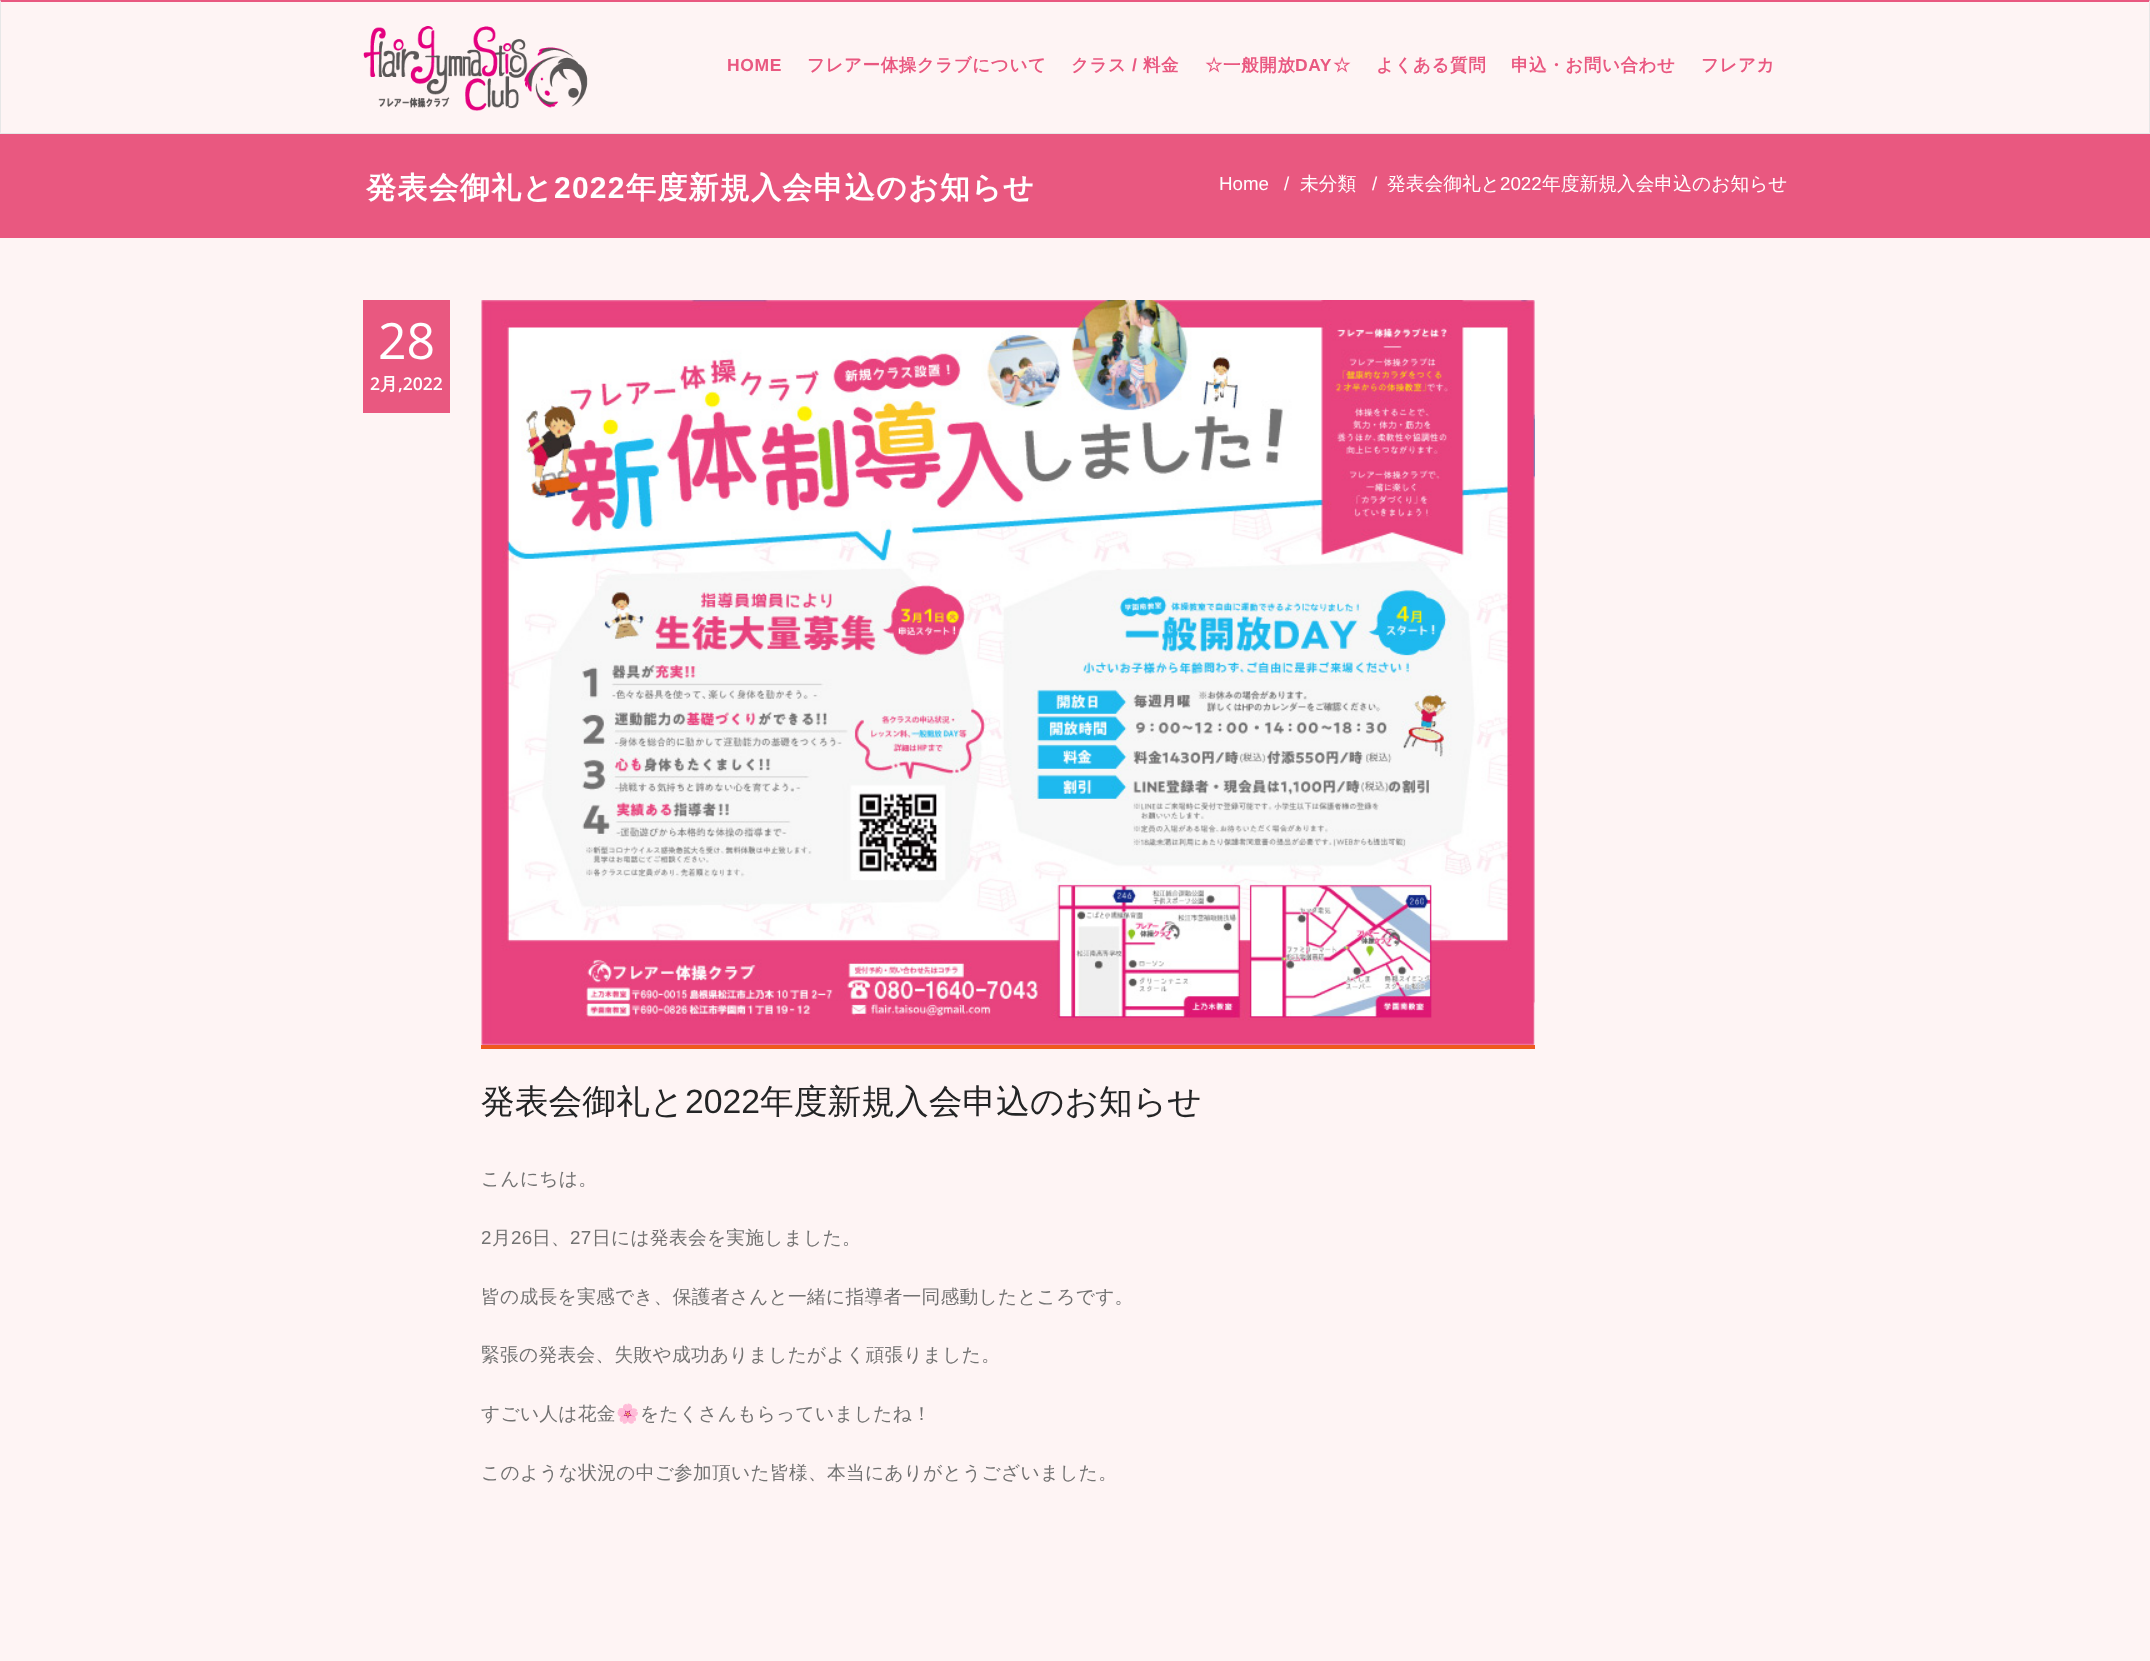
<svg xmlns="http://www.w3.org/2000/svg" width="2150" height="1661">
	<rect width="100%" height="100%" fill="#FEF4F4" />
	<path d="M0 0H2150L2149 2H1Z" fill="#E95880" />
	<path d="M2150 0V134L2149 132V2Z" fill="#E7E7E7" />
	<rect x="0" y="133" width="2150" height="1" fill="#E7E7E7" />
	<path d="M0 134V0L1 2V132Z" fill="#E7E7E7" />
	<image x="363" y="26" width="225" height="85" href="assets/img1.png" />
	<text x="727" y="71" font-family="Liberation Sans" font-size="17.5" font-weight="700" letter-spacing="0.6" fill="#E95880">HOME</text>
	<g font-family="WenQuanYi Zen Hei" font-size="17.5" font-weight="700" letter-spacing="0.6" fill="#E95880">
		<text x="807" y="71">フレアー体操クラブについて</text>
		<text x="1071" y="71">クラス</text>
	</g>
	<text x="1132" y="71" font-family="Liberation Sans" font-size="17.5" font-weight="700" letter-spacing="0.6" fill="#E95880">/</text>
	<g font-family="WenQuanYi Zen Hei" font-size="17.5" font-weight="700" letter-spacing="0.6" fill="#E95880">
		<text x="1143" y="71">料金</text>
		<text x="1205" y="71">☆一般開放</text>
	</g>
	<text x="1295" y="71" font-family="Liberation Sans" font-size="17.5" font-weight="700" letter-spacing="0.6" fill="#E95880">DAY</text>
	<g font-family="WenQuanYi Zen Hei" font-size="17.5" font-weight="700" letter-spacing="0.6" fill="#E95880">
		<text x="1333" y="71">☆</text>
		<text x="1376" y="71">よくある質問</text>
		<text x="1511" y="71">申込・お問い合わせ</text>
		<text x="1701" y="71">フレアカ</text>
	</g>
	<rect x="0" y="134" width="2150" height="104" fill="#E95880" />
	<text x="366" y="198" font-family="WenQuanYi Zen Hei" font-size="30" font-weight="700" letter-spacing="1.25" fill="#FFFFFF">発表会御礼と</text>
	<text x="554" y="198" font-family="Liberation Sans" font-size="30" font-weight="700" letter-spacing="1.25" fill="#FFFFFF">2022</text>
	<text x="626" y="198" font-family="WenQuanYi Zen Hei" font-size="30" font-weight="700" letter-spacing="1.25" fill="#FFFFFF">年度新規入会申込のお知らせ</text>
	<g font-family="Liberation Sans" font-size="18.75" fill="#FFFFFF">
		<text x="1219" y="190">Home</text>
		<text x="1284" y="190">/</text>
	</g>
	<text x="1300" y="190" font-family="WenQuanYi Zen Hei" font-size="18.75" font-weight="500" fill="#FFFFFF">未分類</text>
	<text x="1372" y="190" font-family="Liberation Sans" font-size="18.75" fill="#FFFFFF">/</text>
	<text x="1387" y="190" font-family="WenQuanYi Zen Hei" font-size="18.75" font-weight="500" fill="#FFFFFF">発表会御礼と</text>
	<text x="1500" y="190" font-family="Liberation Sans" font-size="18.75" fill="#FFFFFF">2022</text>
	<text x="1542" y="190" font-family="WenQuanYi Zen Hei" font-size="18.75" font-weight="500" fill="#FFFFFF">年度新規入会申込のお知らせ</text>
	<rect x="363" y="300" width="87" height="113" fill="#E95880" />
	<text x="378" y="359" font-family="Open Sans" font-size="50" fill="#FFFFFF">28</text>
	<text x="370" y="390" font-family="Open Sans" font-size="17.5" font-weight="600" fill="#FFFFFF">2</text>
	<text x="380" y="390" font-family="WenQuanYi Zen Hei" font-size="17.5" font-weight="700" fill="#FFFFFF">月</text>
	<text x="398" y="390" font-family="Open Sans" font-size="17.5" font-weight="600" fill="#FFFFFF">,2022</text>
	<rect x="481" y="1045" width="1054" height="4" fill="#EE591F" />
	<image x="481" y="300" width="1054" height="745" href="assets/img2.png" />
	<text x="481" y="1113" font-family="WenQuanYi Zen Hei" font-size="33.75" font-weight="500" fill="#242526">発表会御礼と</text>
	<text x="685" y="1113" font-family="Liberation Sans" font-size="33.75" fill="#242526">2022</text>
	<text x="760" y="1113" font-family="WenQuanYi Zen Hei" font-size="33.75" font-weight="500" fill="#242526">年度新規入会申込のお知らせ</text>
	<text x="481" y="1185" font-family="WenQuanYi Zen Hei" font-size="18.75" font-weight="500" letter-spacing="0.25" fill="#727272">こんにちは。</text>
	<text x="481" y="1244" font-family="Liberation Sans" font-size="18.75" letter-spacing="0.25" fill="#727272">2</text>
	<text x="492" y="1244" font-family="WenQuanYi Zen Hei" font-size="18.75" font-weight="500" letter-spacing="0.25" fill="#727272">月</text>
	<text x="511" y="1244" font-family="Liberation Sans" font-size="18.75" letter-spacing="0.25" fill="#727272">26</text>
	<text x="532" y="1244" font-family="WenQuanYi Zen Hei" font-size="18.75" font-weight="500" letter-spacing="0.25" fill="#727272">日、</text>
	<text x="570" y="1244" font-family="Liberation Sans" font-size="18.75" letter-spacing="0.25" fill="#727272">27</text>
	<g font-family="WenQuanYi Zen Hei" font-size="18.75" font-weight="500" letter-spacing="0.25" fill="#727272">
		<text x="592" y="1244">日には発表会を実施しました。</text>
		<text x="481" y="1303">皆の成長を実感でき、保護者さんと一緒に指導者一同感動したところです。</text>
		<text x="481" y="1361">緊張の発表会、失敗や成功ありましたがよく頑張りました。</text>
		<text x="481" y="1420">すごい人は花金</text>
	</g>
	<text x="616" y="1420" font-family="Noto Color Emoji" font-size="18.75" letter-spacing="0.25" fill="#727272">🌸</text>
	<g font-family="WenQuanYi Zen Hei" font-size="18.75" font-weight="500" letter-spacing="0.25" fill="#727272">
		<text x="640" y="1420">をたくさんもらっていましたね！</text>
		<text x="481" y="1479">このような状況の中ご参加頂いた皆様、本当にありがとうございました。</text>
	</g>
</svg>
